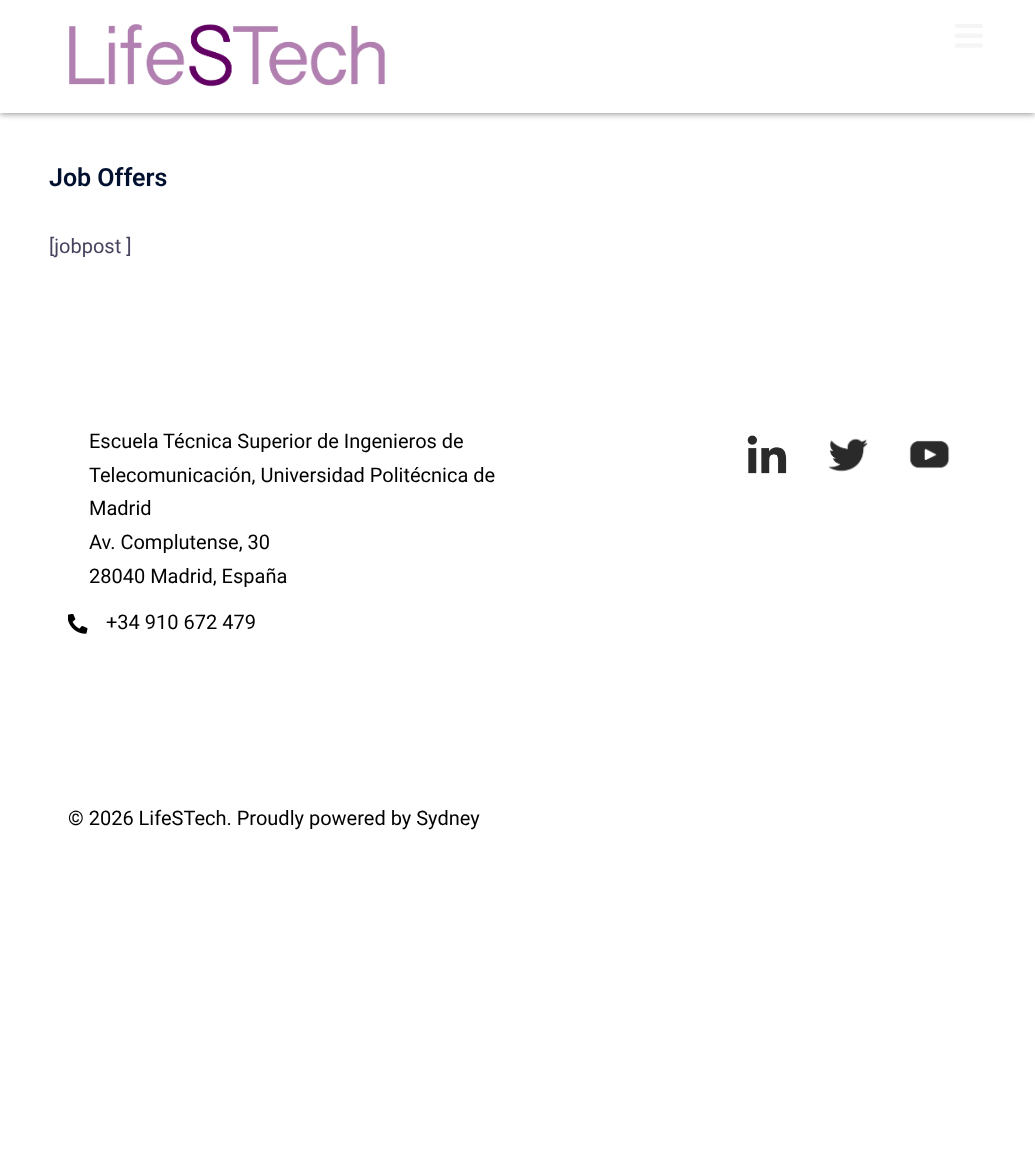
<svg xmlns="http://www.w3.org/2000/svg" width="1035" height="1167">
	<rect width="100%" height="100%" fill="#FFFFFF" />
	<rect x="0" y="1" width="1035" height="113" fill="#272727" fill-opacity="0.5" filter="blur(3px)" />
	<rect x="0" y="0" width="1035" height="113" fill="#FFFFFF" />
	<image x="69" y="23" width="316" height="64" href="assets/img1.png" />
	<image x="955" y="24" width="28" height="24" href="assets/img2.png" />
	<text x="49" y="186" font-family="Roboto" font-size="25" font-weight="600" fill="#00102E">Job Offers</text>
	<text x="49" y="253" font-family="Roboto" font-size="20" fill="#47425D">[jobpost ]</text>
	<g font-family="Roboto" font-size="20" fill="#000000">
		<text x="89" y="448">Escuela Técnica Superior de Ingenieros de</text>
		<text x="89" y="482">Telecomunicación, Universidad Politécnica de</text>
		<text x="89" y="515">Madrid</text>
		<text x="89" y="549">Av. Complutense, 30</text>
		<text x="89" y="583">28040 Madrid, España</text>
	</g>
	<image x="68" y="614" width="20" height="20" href="assets/img3.png" />
	<text x="106" y="629" font-family="Roboto" font-size="20" fill="#000000">+34 910 672 479</text>
	<image x="747" y="435" width="40" height="39" href="assets/img4.png" />
	<image x="828" y="438" width="40" height="34" href="assets/img5.png" />
	<image x="909" y="440" width="41" height="29" href="assets/img6.png" />
	<text x="68" y="825" font-family="Roboto" font-size="20" fill="#000000">© 2026 LifeSTech. Proudly powered by Sydney</text>
</svg>
